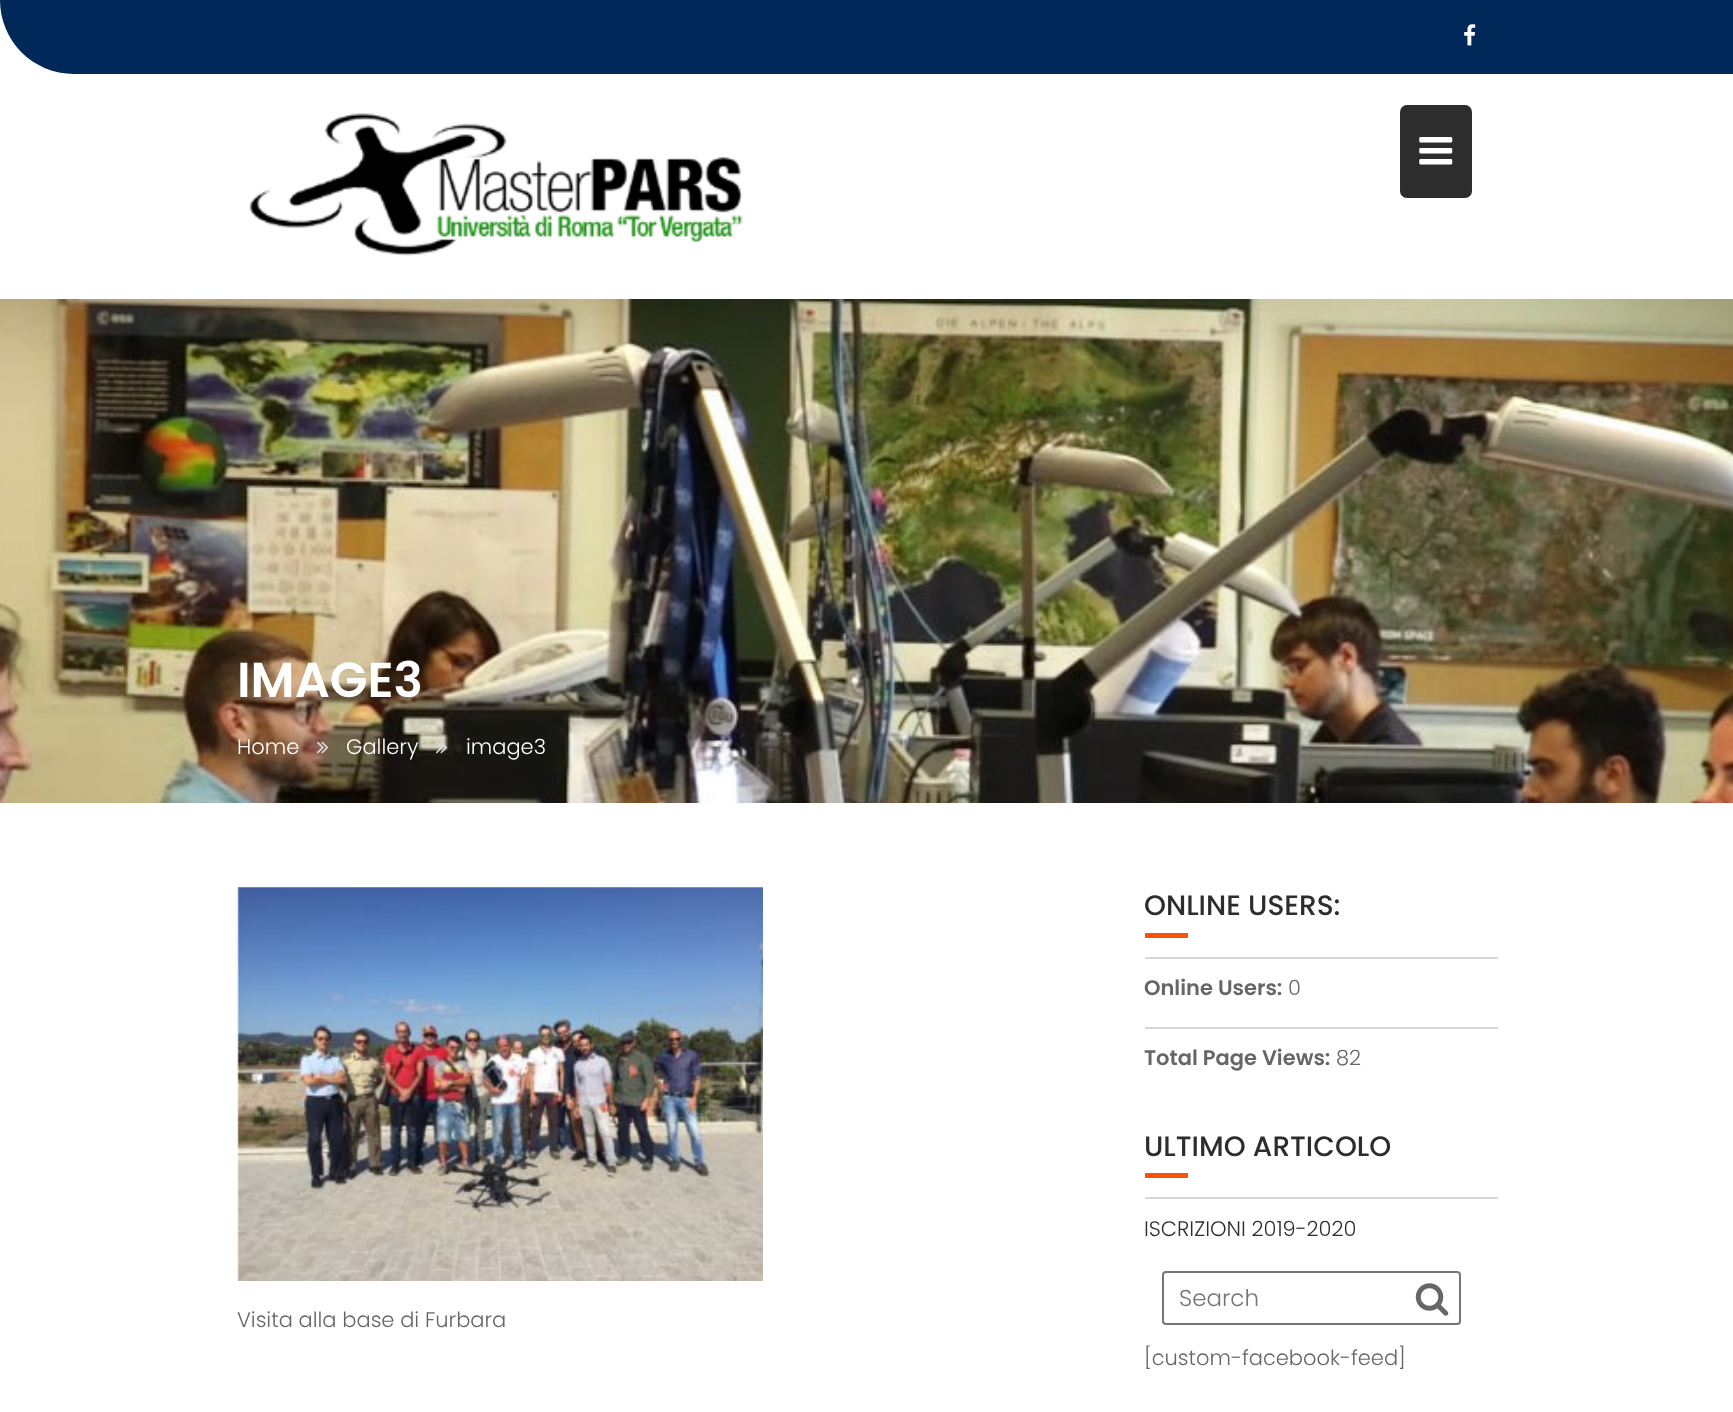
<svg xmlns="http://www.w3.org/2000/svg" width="1733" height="1412">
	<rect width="100%" height="100%" fill="#FFFFFF" />
	<path d="M0 0H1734V74H74C33 74 0 41 0 0Z" fill="#002858" />
	<image x="1464" y="24" width="12" height="22" href="assets/img1.png" />
	<image x="249" y="113" width="494" height="143" href="assets/img2.png" />
	<rect x="1400" y="105" width="72" height="93" rx="7" fill="#2D2D2D" />
	<image x="1419" y="137" width="34" height="28" href="assets/img3.png" />
	<image x="0" y="299" width="1733" height="504" href="assets/img4.png" />
	<text x="237" y="697" font-family="Poppins" font-size="49" font-weight="600" fill="#FFFFFF">IMAGE3</text>
	<text x="237" y="754" font-family="Poppins" font-size="21" font-weight="300" fill="#FFFFFF">Home</text>
	<image x="317" y="741" width="12" height="13" href="assets/img5.png" />
	<text x="346" y="754" font-family="Poppins" font-size="21" font-weight="300" fill="#FFFFFF">Gallery</text>
	<image x="435" y="741" width="13" height="13" href="assets/img6.png" />
	<text x="466" y="754" font-family="Poppins" font-size="21" font-weight="300" fill="#FFFFFF">image3</text>
	<image x="237" y="887" width="526" height="394" href="assets/img7.png" />
	<text x="237" y="1327" font-family="Poppins" font-size="21" font-weight="300" fill="#666666">Visita alla base di Furbara</text>
	<text x="1144" y="915" font-family="Poppins" font-size="28" font-weight="500" fill="#2D2D2D">ONLINE USERS:</text>
	<rect x="1145" y="933" width="43" height="5" fill="#FD5308" />
	<rect x="1145" y="957" width="353" height="2" fill="#D7D7D7" />
	<text x="1144" y="995" font-family="Poppins" font-size="21" font-weight="600" fill="#666666">Online Users:</text>
	<text x="1288" y="995" font-family="Poppins" font-size="21" font-weight="300" fill="#666666">0</text>
	<rect x="1145" y="1027" width="353" height="2" fill="#D7D7D7" />
	<text x="1144" y="1065" font-family="Poppins" font-size="21" font-weight="600" fill="#666666">Total Page Views:</text>
	<text x="1336" y="1065" font-family="Poppins" font-size="21" font-weight="300" fill="#666666">82</text>
	<text x="1144" y="1156" font-family="Poppins" font-size="28" font-weight="500" fill="#2D2D2D">ULTIMO ARTICOLO</text>
	<rect x="1145" y="1173" width="43" height="5" fill="#FD5308" />
	<rect x="1145" y="1197" width="353" height="2" fill="#D7D7D7" />
	<text x="1144" y="1236" font-family="Poppins" font-size="21" font-weight="300" fill="#2D2D2D">ISCRIZIONI 2019-2020</text>
	<rect x="1163" y="1272" width="297" height="52" rx="3" fill="none" stroke="#767676" stroke-width="2" />
	<text x="1179" y="1306" font-family="Poppins" font-size="23" font-weight="300" fill="#757575">Search</text>
	<image x="1415" y="1283" width="34" height="33" href="assets/img8.png" />
	<text x="1144" y="1365" font-family="Poppins" font-size="21" font-weight="300" fill="#666666">[custom-facebook-feed]</text>
</svg>
